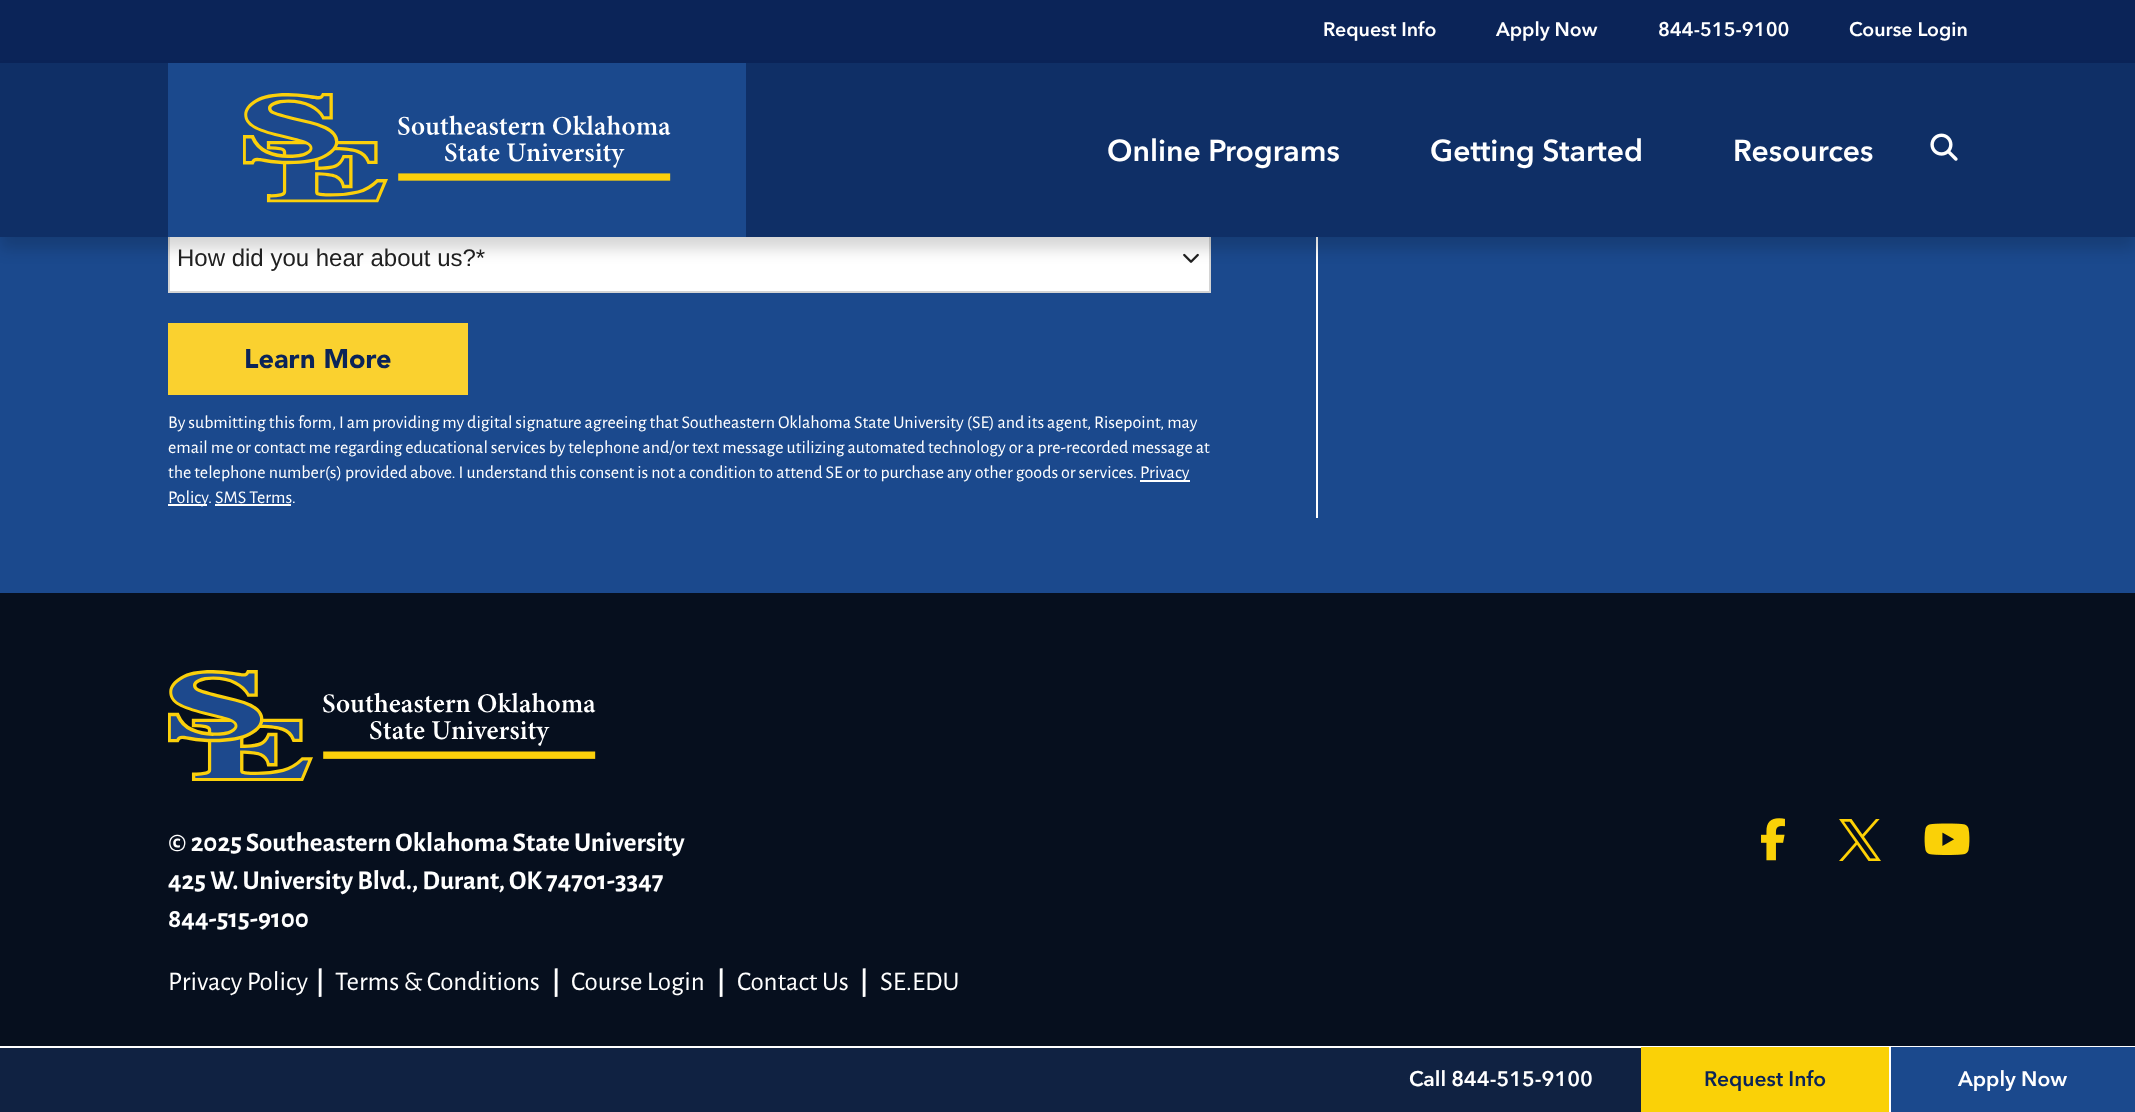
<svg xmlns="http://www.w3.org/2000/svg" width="2135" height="1112">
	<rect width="100%" height="100%" fill="#1B498D" />
	<rect x="0" y="0" width="2135" height="63" fill="#0B2458" />
	<g font-family="Avenir" font-size="19.5" font-weight="700" fill="#FFFFFF">
		<text x="1323" y="36">Request Info</text>
		<text x="1496" y="36">Apply Now</text>
		<text x="1658" y="36">844-515-9100</text>
		<text x="1849" y="36">Course Login</text>
	</g>
	<rect x="170" y="237" width="1039" height="54" fill="#FFFFFF" />
	<rect x="169" y="226" width="1041" height="66" fill="none" stroke="#D4D4D4" stroke-width="2" />
	<image x="1183" y="253" width="16" height="10" href="assets/img3.png" />
	<rect x="1316" y="237" width="2" height="281" fill="#FFFFFF" />
	<rect x="0" y="75" width="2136" height="174" fill="#000000" fill-opacity="0.16" filter="blur(7.5px)" />
	<rect x="0" y="63" width="2135" height="174" fill="#0F2F66" />
	<rect x="168" y="63" width="578" height="174" fill="#1B498D" />
	<image x="243" y="93" width="428" height="110" href="assets/img1.png" />
	<g font-family="Avenir" font-size="30" font-weight="700" fill="#FFFFFF">
		<text x="1107" y="161">Online Programs</text>
		<text x="1430" y="161">Getting Started</text>
		<text x="1733" y="161">Resources</text>
	</g>
	<image x="1930" y="133" width="28" height="28" href="assets/img2.png" />
	<text x="177" y="266" font-family="Liberation Sans" font-size="24" fill="#202020">How did you hear about us?*</text>
	<rect x="168" y="323" width="300" height="72" fill="#FAD12F" />
	<text x="244" y="368" font-family="Avenir" font-size="27" font-weight="900" fill="#0B2458">Learn More</text>
	<g font-family="Alegreya Sans" font-size="18" fill="#FFFFFF">
		<text x="168" y="428">By submitting this form, I am providing my digital signature agreeing that Southeastern Oklahoma State University (SE) and its agent, Risepoint, may</text>
		<text x="168" y="453">email me or contact me regarding educational services by telephone and/or text message utilizing automated technology or a pre-recorded message at</text>
		<text x="168" y="478">the telephone number(s) provided above. I understand this consent is not a condition to attend SE or to purchase any other goods or services.</text>
	</g>
	<rect x="1140" y="480" width="50" height="2" fill="#FFFFFF" />
	<text x="1140" y="478" font-family="Alegreya Sans" font-size="18" fill="#FFFFFF">Privacy</text>
	<rect x="168" y="504" width="39" height="2" fill="#FFFFFF" />
	<g font-family="Alegreya Sans" font-size="18" fill="#FFFFFF">
		<text x="168" y="503">Policy</text>
		<text x="208" y="503">. SMS Terms.</text>
	</g>
	<rect x="215" y="504" width="76" height="2" fill="#FFFFFF" />
	<rect x="0" y="593" width="2135" height="453" fill="#060F1E" />
	<image x="168" y="670" width="428" height="111" href="assets/img4.png" />
	<g font-family="Alegreya Sans" font-size="27" font-weight="700" fill="#FFFFFF">
		<text x="168" y="851">© 2025 Southeastern Oklahoma State University</text>
		<text x="168" y="889">425 W. University Blvd., Durant, OK 74701-3347</text>
		<text x="168" y="927">844-515-9100</text>
	</g>
	<text x="168" y="990" font-family="Alegreya Sans" font-size="27" fill="#FFFFFF">Privacy Policy</text>
	<text x="316" y="990" font-family="Alegreya Sans" font-size="27" font-weight="700" fill="#FFFFFF">|</text>
	<text x="335" y="990" font-family="Alegreya Sans" font-size="27" fill="#FFFFFF">Terms &amp; Conditions</text>
	<text x="552" y="990" font-family="Alegreya Sans" font-size="27" font-weight="700" fill="#FFFFFF">|</text>
	<text x="571" y="990" font-family="Alegreya Sans" font-size="27" fill="#FFFFFF">Course Login</text>
	<text x="717" y="990" font-family="Alegreya Sans" font-size="27" font-weight="700" fill="#FFFFFF">|</text>
	<text x="737" y="990" font-family="Alegreya Sans" font-size="27" fill="#FFFFFF">Contact Us</text>
	<text x="860" y="990" font-family="Alegreya Sans" font-size="27" font-weight="700" fill="#FFFFFF">|</text>
	<text x="880" y="990" font-family="Alegreya Sans" font-size="27" fill="#FFFFFF">SE.EDU</text>
	<image x="1761" y="818" width="24" height="43" href="assets/img5.png" />
	<image x="1839" y="819" width="42" height="42" href="assets/img6.png" />
	<image x="1924" y="823" width="46" height="32" href="assets/img7.png" />
	<rect x="0" y="1048" width="1641" height="64" fill="#102242" />
	<rect x="0" y="1046" width="2135" height="2" fill="#FFFFFF" />
	<text x="1409" y="1086" font-family="Avenir" font-size="21" font-weight="700" fill="#FFFFFF">Call 844-515-9100</text>
	<rect x="1641" y="1047" width="248" height="65" fill="#FAD107" />
	<text x="1704" y="1086" font-family="Avenir" font-size="21" font-weight="700" fill="#0B2458">Request Info</text>
	<rect x="1891" y="1047" width="244" height="1" fill="#1B498D" />
	<rect x="1889" y="1047" width="2" height="65" fill="#FFFFFF" />
	<text x="1958" y="1086" font-family="Avenir" font-size="21" font-weight="700" fill="#FFFFFF">Apply Now</text>
</svg>
